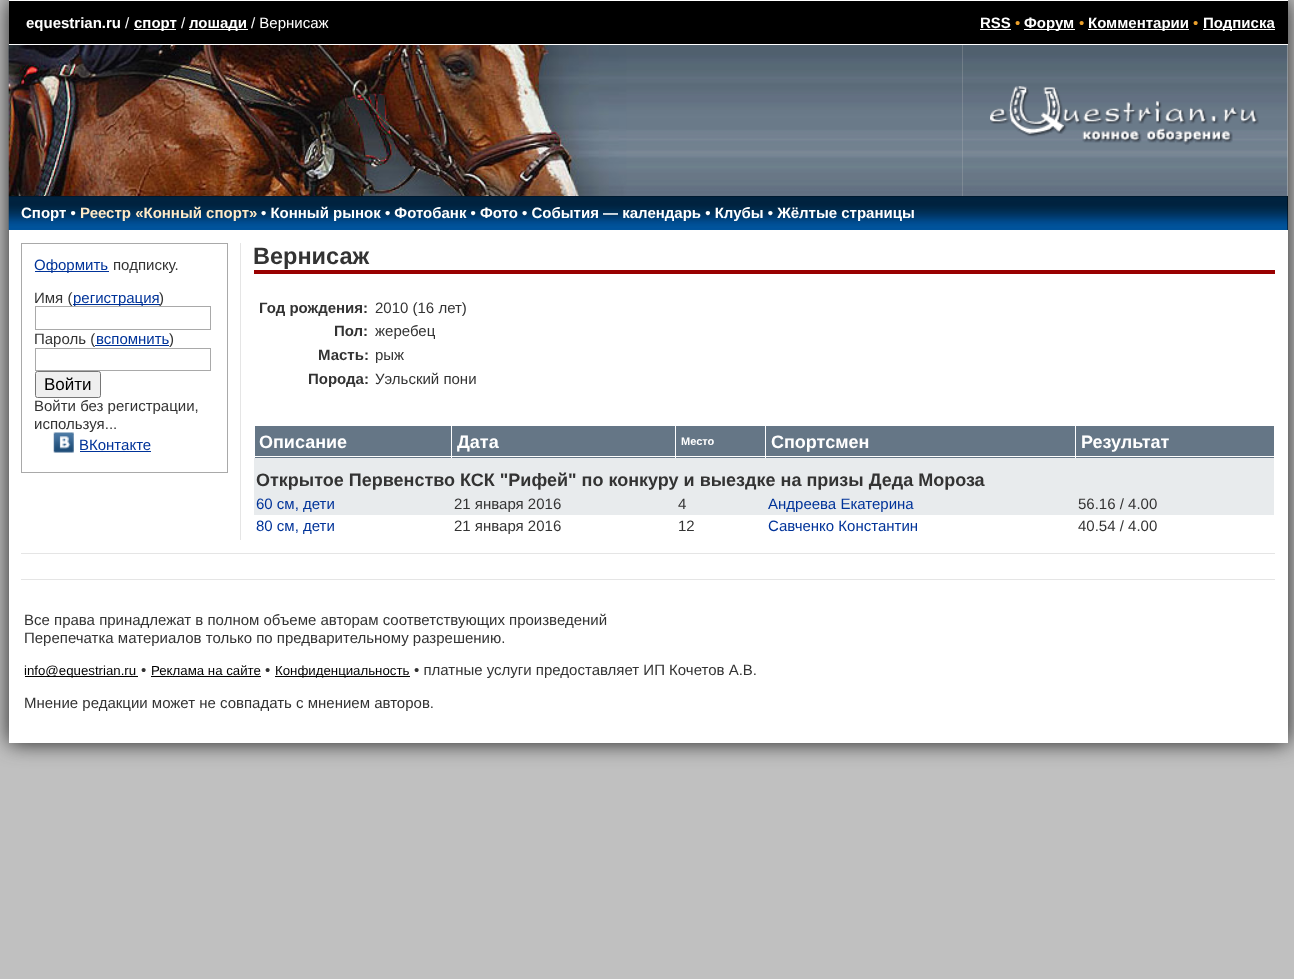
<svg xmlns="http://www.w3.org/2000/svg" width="1294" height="979">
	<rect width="100%" height="100%" fill="#C0C0C0" />
	<rect x="9" y="0" width="1279" height="743" fill="#212121" filter="blur(10.5px)" />
	<rect x="962" y="45" width="326" height="151" fill="#C0C0C0" />
	<rect x="9" y="1" width="1279" height="43" fill="#000000" />
	<rect x="9" y="0" width="1279" height="1" fill="#FFFFFF" />
	<rect x="9" y="44" width="1279" height="1" fill="#FFFFFF" />
	<text x="26" y="28" font-family="Liberation Sans" font-size="15" font-weight="700" fill="#FFFFFF">equestrian.ru</text>
	<text x="125" y="28" font-family="Liberation Sans" font-size="15" fill="#FFFFFF">/</text>
	<rect x="134" y="29" width="42" height="1" fill="#FFFFFF" />
	<text x="134" y="28" font-family="Liberation Sans" font-size="15" font-weight="700" fill="#FFFFFF">спорт</text>
	<text x="181" y="28" font-family="Liberation Sans" font-size="15" fill="#FFFFFF">/</text>
	<rect x="189" y="29" width="59" height="1" fill="#FFFFFF" />
	<text x="189" y="28" font-family="Liberation Sans" font-size="15" font-weight="700" fill="#FFFFFF">лошади</text>
	<text x="251" y="28" font-family="Liberation Sans" font-size="15" fill="#FFFFFF">/ Вернисаж</text>
	<text x="980" y="28" font-family="Liberation Sans" font-size="15" font-weight="700" fill="#FFFFFF">RSS</text>
	<rect x="980" y="29" width="31" height="1" fill="#FFFFFF" />
	<text x="1015" y="28" font-family="Liberation Sans" font-size="15" fill="#EBA02B">•</text>
	<rect x="1024" y="29" width="51" height="1" fill="#FFFFFF" />
	<text x="1024" y="28" font-family="Liberation Sans" font-size="15" font-weight="700" fill="#FFFFFF">Форум</text>
	<text x="1079" y="28" font-family="Liberation Sans" font-size="15" fill="#EBA02B">•</text>
	<rect x="1088" y="29" width="101" height="1" fill="#FFFFFF" />
	<text x="1088" y="28" font-family="Liberation Sans" font-size="15" font-weight="700" fill="#FFFFFF">Комментарии</text>
	<text x="1193" y="28" font-family="Liberation Sans" font-size="15" fill="#EBA02B">•</text>
	<rect x="1203" y="29" width="72" height="1" fill="#FFFFFF" />
	<text x="1203" y="28" font-family="Liberation Sans" font-size="15" font-weight="700" fill="#FFFFFF">Подписка</text>
	<image x="8" y="45" width="955" height="152" href="assets/img1.png" />
	<image x="8" y="45" width="619" height="152" href="assets/img2.png" />
	<image x="962" y="45" width="326" height="151" href="assets/img3.png" />
	<image x="990" y="86" width="269" height="59" href="assets/img4.png" />
	<rect x="9" y="196" width="1279" height="34" fill="#000000" />
	<image x="8" y="196" width="1280" height="34" href="assets/img5.png" />
	<text x="21" y="218" font-family="Liberation Sans" font-size="15" font-weight="700" fill="#FFFFFF">Спорт •</text>
	<text x="80" y="218" font-family="Liberation Sans" font-size="15" font-weight="700" fill="#FEEAC7">Реестр «Конный спорт»</text>
	<text x="261" y="218" font-family="Liberation Sans" font-size="15" font-weight="700" fill="#FFFFFF">• Конный рынок • Фотобанк • Фото • События — календарь • Клубы • Жёлтые страницы</text>
	<rect x="9" y="230" width="1279" height="513" fill="#FFFFFF" />
	<rect x="240" y="243" width="1" height="297" fill="#E5E5E5" />
	<rect x="21.5" y="243.5" width="206" height="229" fill="none" stroke="#A9A9A9" />
	<rect x="35" y="271" width="74" height="1" fill="#003399" />
	<text x="34" y="270" font-family="Liberation Sans" font-size="15" fill="#003399">Оформить</text>
	<g font-family="Liberation Sans" font-size="15" fill="#333333">
		<text x="113" y="270">подписку.</text>
		<text x="34" y="303">Имя (</text>
	</g>
	<rect x="73" y="304" width="87" height="1" fill="#003399" />
	<text x="73" y="303" font-family="Liberation Sans" font-size="15" fill="#003399">регистрация</text>
	<text x="159" y="303" font-family="Liberation Sans" font-size="15" fill="#333333">)</text>
	<rect x="35.5" y="306.5" width="175" height="23" fill="none" stroke="#A9A9A9" />
	<text x="34" y="344" font-family="Liberation Sans" font-size="15" fill="#333333">Пароль (</text>
	<text x="96" y="344" font-family="Liberation Sans" font-size="15" fill="#003399">вспомнить</text>
	<rect x="95" y="345" width="74" height="1" fill="#003399" />
	<text x="169" y="344" font-family="Liberation Sans" font-size="15" fill="#333333">)</text>
	<rect x="35.5" y="348.5" width="175" height="22" fill="none" stroke="#A9A9A9" />
	<rect x="35.5" y="371.5" width="65" height="26" rx="2" fill="#EFEFEF" stroke="#767676" />
	<text x="44" y="390" font-family="Liberation Sans" font-size="17" fill="#000000">Войти</text>
	<g font-family="Liberation Sans" font-size="15" fill="#333333">
		<text x="34" y="411">Войти без регистрации,</text>
		<text x="34" y="429">используя...</text>
	</g>
	<image x="53" y="432" width="21" height="21" href="assets/img6.png" />
	<text x="79" y="450" font-family="Liberation Sans" font-size="15" fill="#003399">ВКонтакте</text>
	<rect x="80" y="451" width="71" height="1" fill="#003399" />
	<rect x="254" y="270" width="1021" height="4" fill="#990000" />
	<text x="253" y="264" font-family="Liberation Sans" font-size="23.5" font-weight="700" fill="#333333">Вернисаж</text>
	<text x="259" y="313" font-family="Liberation Sans" font-size="15" font-weight="700" fill="#333333">Год рождения:</text>
	<text x="375" y="313" font-family="Liberation Sans" font-size="15" fill="#333333">2010 (16 лет)</text>
	<text x="334" y="336" font-family="Liberation Sans" font-size="15" font-weight="700" fill="#333333">Пол:</text>
	<text x="375" y="336" font-family="Liberation Sans" font-size="15" fill="#333333">жеребец</text>
	<text x="318" y="360" font-family="Liberation Sans" font-size="15" font-weight="700" fill="#333333">Масть:</text>
	<text x="375" y="360" font-family="Liberation Sans" font-size="15" fill="#333333">рыж</text>
	<text x="308" y="384" font-family="Liberation Sans" font-size="15" font-weight="700" fill="#333333">Порода:</text>
	<text x="375" y="384" font-family="Liberation Sans" font-size="15" fill="#333333">Уэльский пони</text>
	<rect x="255" y="426" width="196" height="32" fill="#657686" />
	<text x="259" y="448" font-family="Liberation Sans" font-size="18" font-weight="700" fill="#FFFFFF">Описание</text>
	<rect x="452" y="426" width="223" height="32" fill="#657686" />
	<text x="457" y="448" font-family="Liberation Sans" font-size="18" font-weight="700" fill="#FFFFFF">Дата</text>
	<rect x="676" y="426" width="89" height="32" fill="#657686" />
	<text x="681" y="445" font-family="Liberation Sans" font-size="11" font-weight="700" fill="#FFFFFF">Место</text>
	<rect x="766" y="426" width="309" height="32" fill="#657686" />
	<text x="771" y="448" font-family="Liberation Sans" font-size="18" font-weight="700" fill="#FFFFFF">Спортсмен</text>
	<rect x="1076" y="426" width="198" height="32" fill="#657686" />
	<rect x="254" y="456" width="1021" height="1" fill="#FFFFFF" />
	<text x="1081" y="448" font-family="Liberation Sans" font-size="18" font-weight="700" fill="#FFFFFF">Результат</text>
	<rect x="254" y="458" width="1020" height="57" fill="#E8EBED" />
	<text x="256" y="486" font-family="Liberation Sans" font-size="18" font-weight="700" fill="#333333">Открытое Первенство КСК "Рифей" по конкуру и выездке на призы Деда Мороза</text>
	<text x="256" y="509" font-family="Liberation Sans" font-size="15" fill="#003399">60 см, дети</text>
	<g font-family="Liberation Sans" font-size="15" fill="#333333">
		<text x="454" y="509">21 января 2016</text>
		<text x="678" y="509">4</text>
	</g>
	<text x="768" y="509" font-family="Liberation Sans" font-size="15" fill="#003399">Андреева Екатерина</text>
	<text x="1078" y="509" font-family="Liberation Sans" font-size="15" fill="#333333">56.16 / 4.00</text>
	<text x="256" y="531" font-family="Liberation Sans" font-size="15" fill="#003399">80 см, дети</text>
	<g font-family="Liberation Sans" font-size="15" fill="#333333">
		<text x="454" y="531">21 января 2016</text>
		<text x="678" y="531">12</text>
	</g>
	<text x="768" y="531" font-family="Liberation Sans" font-size="15" fill="#003399">Савченко Константин</text>
	<text x="1078" y="531" font-family="Liberation Sans" font-size="15" fill="#333333">40.54 / 4.00</text>
	<rect x="21" y="553" width="1254" height="1" fill="#E5E5E5" />
	<rect x="21" y="579" width="1254" height="1" fill="#E5E5E5" />
	<g font-family="Liberation Sans" font-size="15" fill="#333333">
		<text x="24" y="625">Все права принадлежат в полном объеме авторам соответствующих произведений</text>
		<text x="24" y="643">Перепечатка материалов только по предварительному разрешению.</text>
	</g>
	<rect x="25" y="676" width="113" height="1" fill="#000000" />
	<text x="24" y="675" font-family="Liberation Sans" font-size="13.25" fill="#000000">info@equestrian.ru</text>
	<text x="141" y="675" font-family="Liberation Sans" font-size="15" fill="#333333">•</text>
	<text x="151" y="675" font-family="Liberation Sans" font-size="13.25" fill="#000000">Реклама на сайте</text>
	<rect x="151" y="676" width="110" height="1" fill="#000000" />
	<text x="265" y="675" font-family="Liberation Sans" font-size="15" fill="#333333">•</text>
	<rect x="275" y="676" width="135" height="1" fill="#000000" />
	<text x="275" y="675" font-family="Liberation Sans" font-size="13.25" fill="#000000">Конфиденциальность</text>
	<g font-family="Liberation Sans" font-size="15" fill="#333333">
		<text x="414" y="675">• платные услуги предоставляет ИП Кочетов А.В.</text>
		<text x="24" y="708">Мнение редакции может не совпадать с мнением авторов.</text>
	</g>
</svg>
